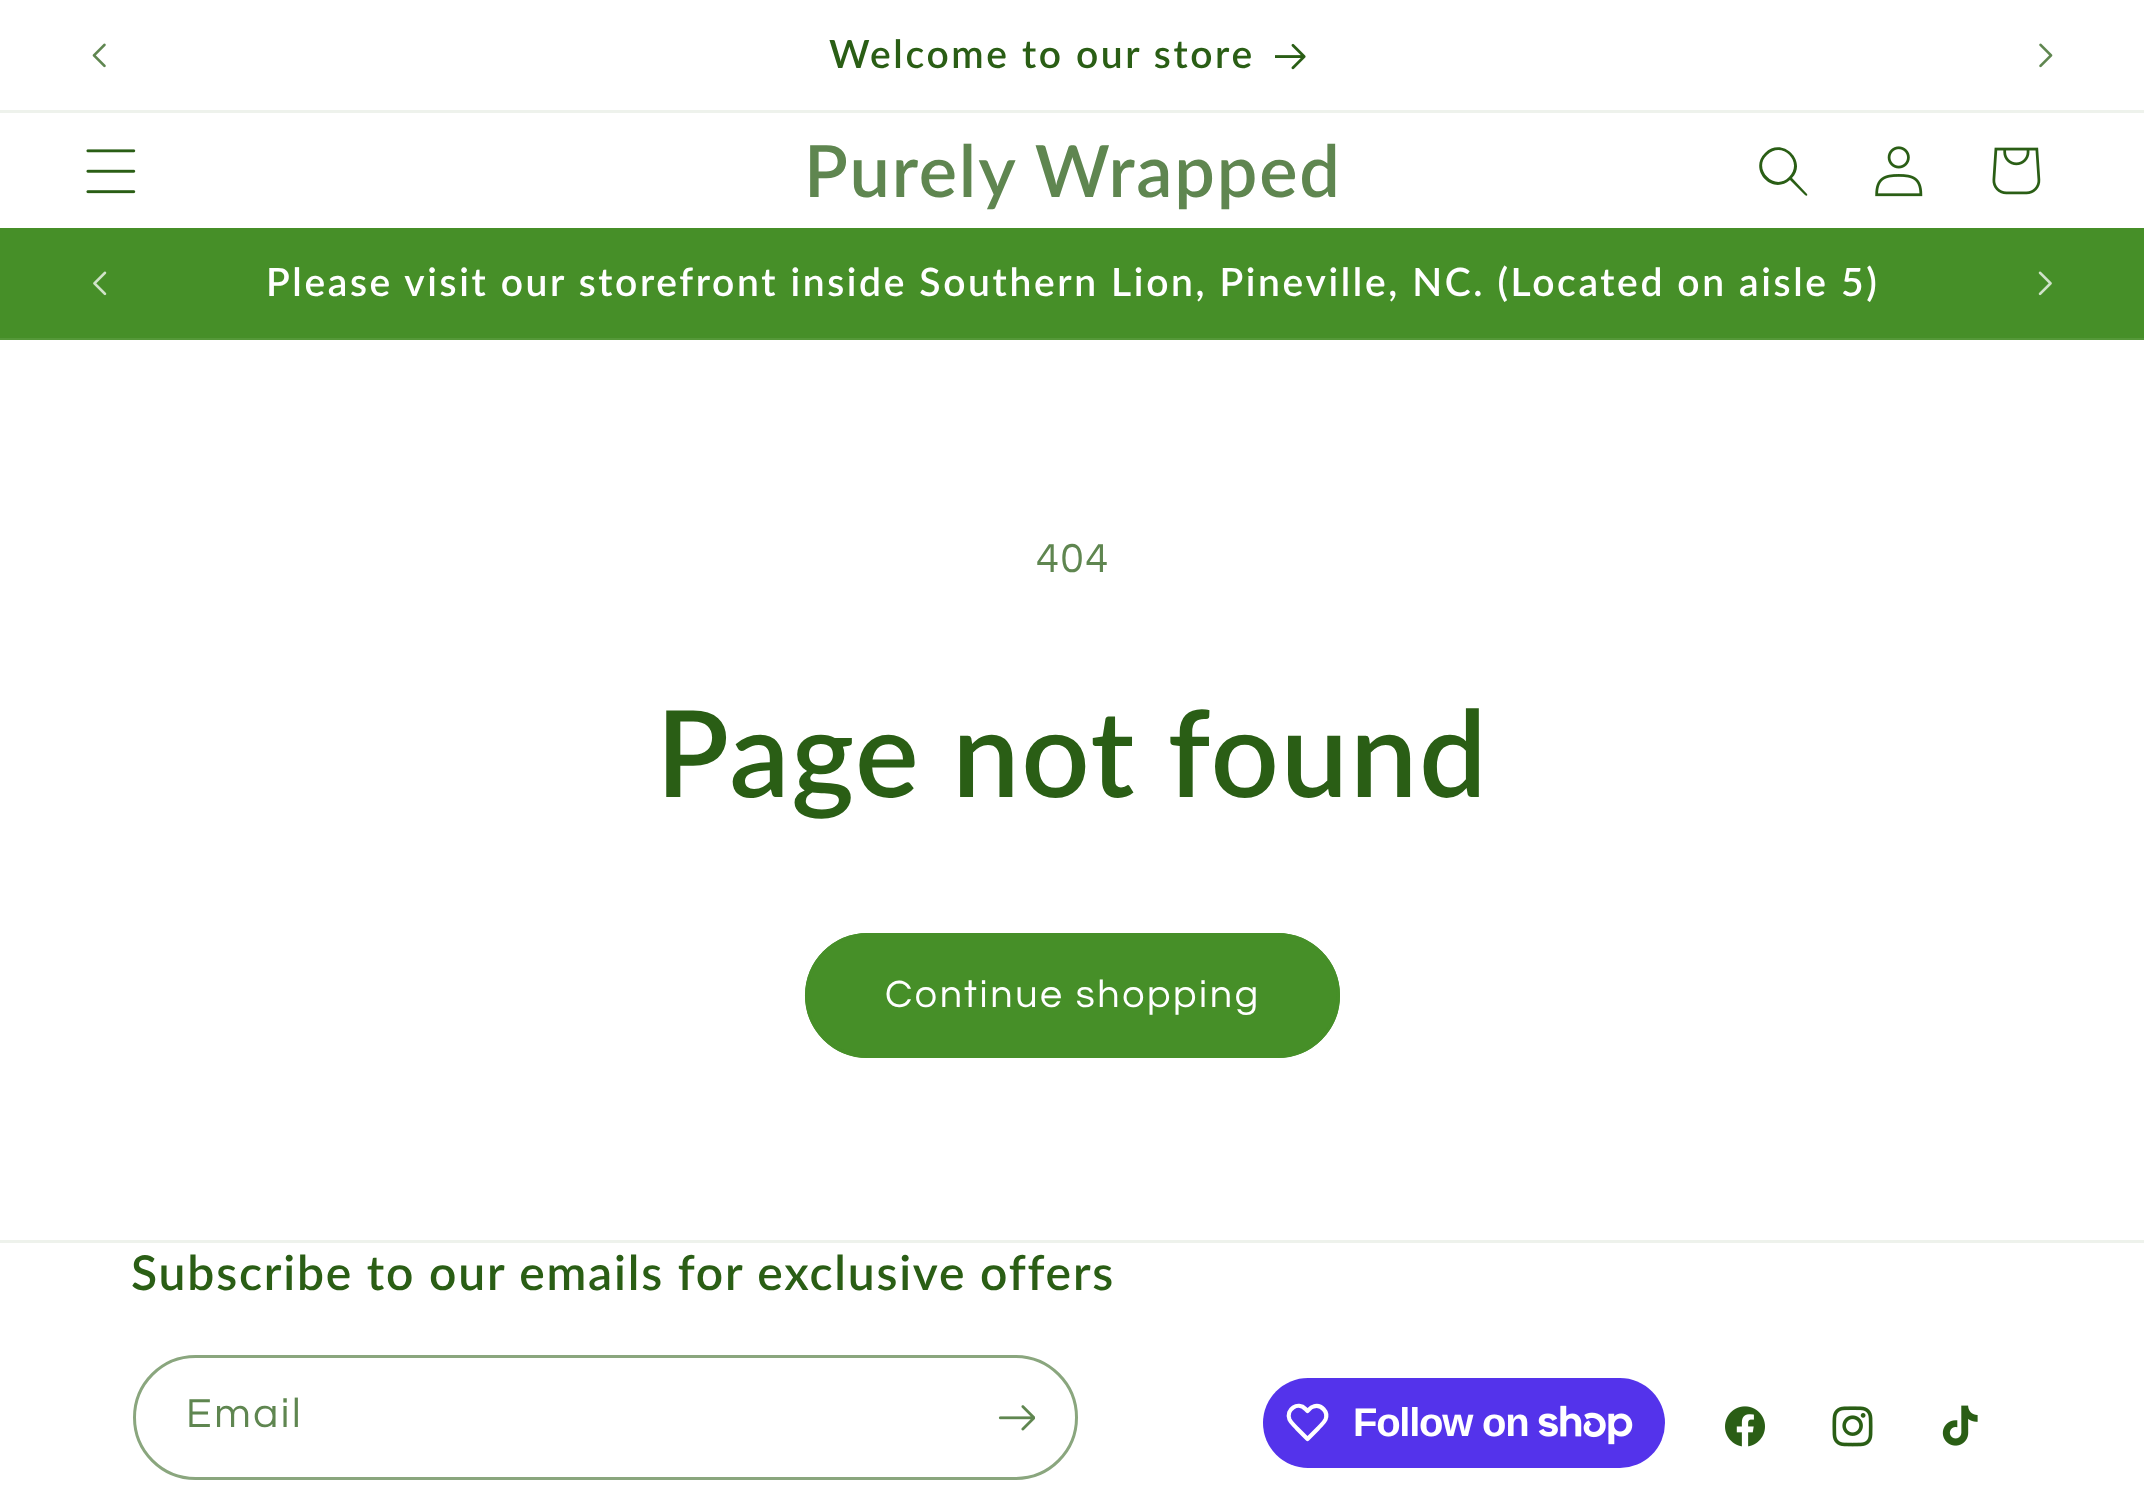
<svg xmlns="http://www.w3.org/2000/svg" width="2144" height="1511">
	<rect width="100%" height="100%" fill="#FFFFFF" />
	<rect x="0" y="110" width="2144" height="3" fill="#EEF2EC" />
	<image x="92" y="43" width="14" height="25" href="assets/img1.png" />
	<text x="829" y="68" font-family="Lato" font-size="39" font-weight="600" letter-spacing="2.62" fill="#2A5E15">Welcome to our store</text>
	<image x="1275" y="43" width="31" height="27" href="assets/img2.png" />
	<image x="2039" y="43" width="14" height="25" href="assets/img3.png" />
	<image x="86" y="149" width="50" height="45" href="assets/img4.png" />
	<text x="804" y="197" font-family="Lato" font-size="72" font-weight="600" letter-spacing="1.8" fill="#5F8650">Purely Wrapped</text>
	<path d="M1789 177C1775 192 1752 169 1767 155C1782 140 1804 162 1789 177M1790 180C1772 196 1748 169 1765 153C1782 136 1808 161 1792 178L1807 194C1808 196 1806 196 1805 195Z" fill="#2A5E15" fill-rule="evenodd" />
	<image x="1875" y="146" width="48" height="51" href="assets/img5.png" />
	<image x="1992" y="147" width="49" height="48" href="assets/img6.png" />
	<rect x="0" y="228" width="2144" height="110" fill="#468F28" />
	<rect x="0" y="338" width="2144" height="2" fill="#559839" />
	<image x="93" y="271" width="14" height="25" href="assets/img7.png" />
	<text x="266" y="296" font-family="Lato" font-size="39" font-weight="600" letter-spacing="2.62" fill="#FFFFFF">Please visit our storefront inside Southern Lion, Pineville, NC. (Located on aisle 5)</text>
	<image x="2038" y="271" width="14" height="25" href="assets/img8.png" />
	<text x="1036" y="572" font-family="Questrial" font-size="42" letter-spacing="1.5" fill="#5F8650">404</text>
	<text x="656" y="797" font-family="Lato" font-size="120" font-weight="600" letter-spacing="1.8" fill="#2A5E15">Page not found</text>
	<rect x="805" y="933" width="535" height="125" rx="62.5" fill="#468F28" />
	<rect x="806.5" y="934.5" width="532" height="122" rx="61" fill="none" stroke="#468F28" stroke-width="3" />
	<text x="885" y="1007" font-family="Questrial" font-size="39.4" letter-spacing="2.62" fill="#FFFFFF">Continue shopping</text>
	<rect x="0" y="1240" width="2144" height="3" fill="#EEF2EC" />
	<text x="131" y="1290" font-family="Lato" font-size="48" font-weight="600" letter-spacing="1.8" fill="#2A5E15">Subscribe to our emails for exclusive offers</text>
	<rect x="134.5" y="1356.5" width="942" height="122" rx="61" fill="none" stroke="#8AA67E" stroke-width="3" />
	<text x="186" y="1427" font-family="Questrial" font-size="42" letter-spacing="2.62" fill="#5F8650">Email</text>
	<image x="998" y="1405" width="37" height="26" href="assets/img9.png" />
	<rect x="1263" y="1378" width="402" height="90" rx="45" fill="#5433EB" />
	<path d="M1305.5 1409L1307.5 1411C1309.5 1409 1311 1407 1313.5 1406.5C1321.5 1404 1328.5 1412 1325.5 1419.5C1324 1423 1320.5 1425.5 1318 1428.5L1307.5 1439L1297 1428.5C1294.5 1425.5 1291 1423 1289.5 1419.5C1285.5 1409.5 1298 1401 1305.5 1409Z" fill="none" stroke="#FFFFFF" stroke-width="4.2" stroke-linejoin="round" />
	<text x="1353" y="1436" font-family="Liberation Sans" font-size="40" font-weight="700" letter-spacing="-1.25" fill="#FFFFFF">Follow on</text>
	<image x="1538" y="1405" width="95" height="40" href="assets/img10.png" />
	<image x="1725" y="1406" width="40" height="41" href="assets/img11.png" />
	<image x="1832" y="1406" width="41" height="41" href="assets/img12.png" />
	<image x="1942" y="1405" width="36" height="41" href="assets/img13.png" />
</svg>
